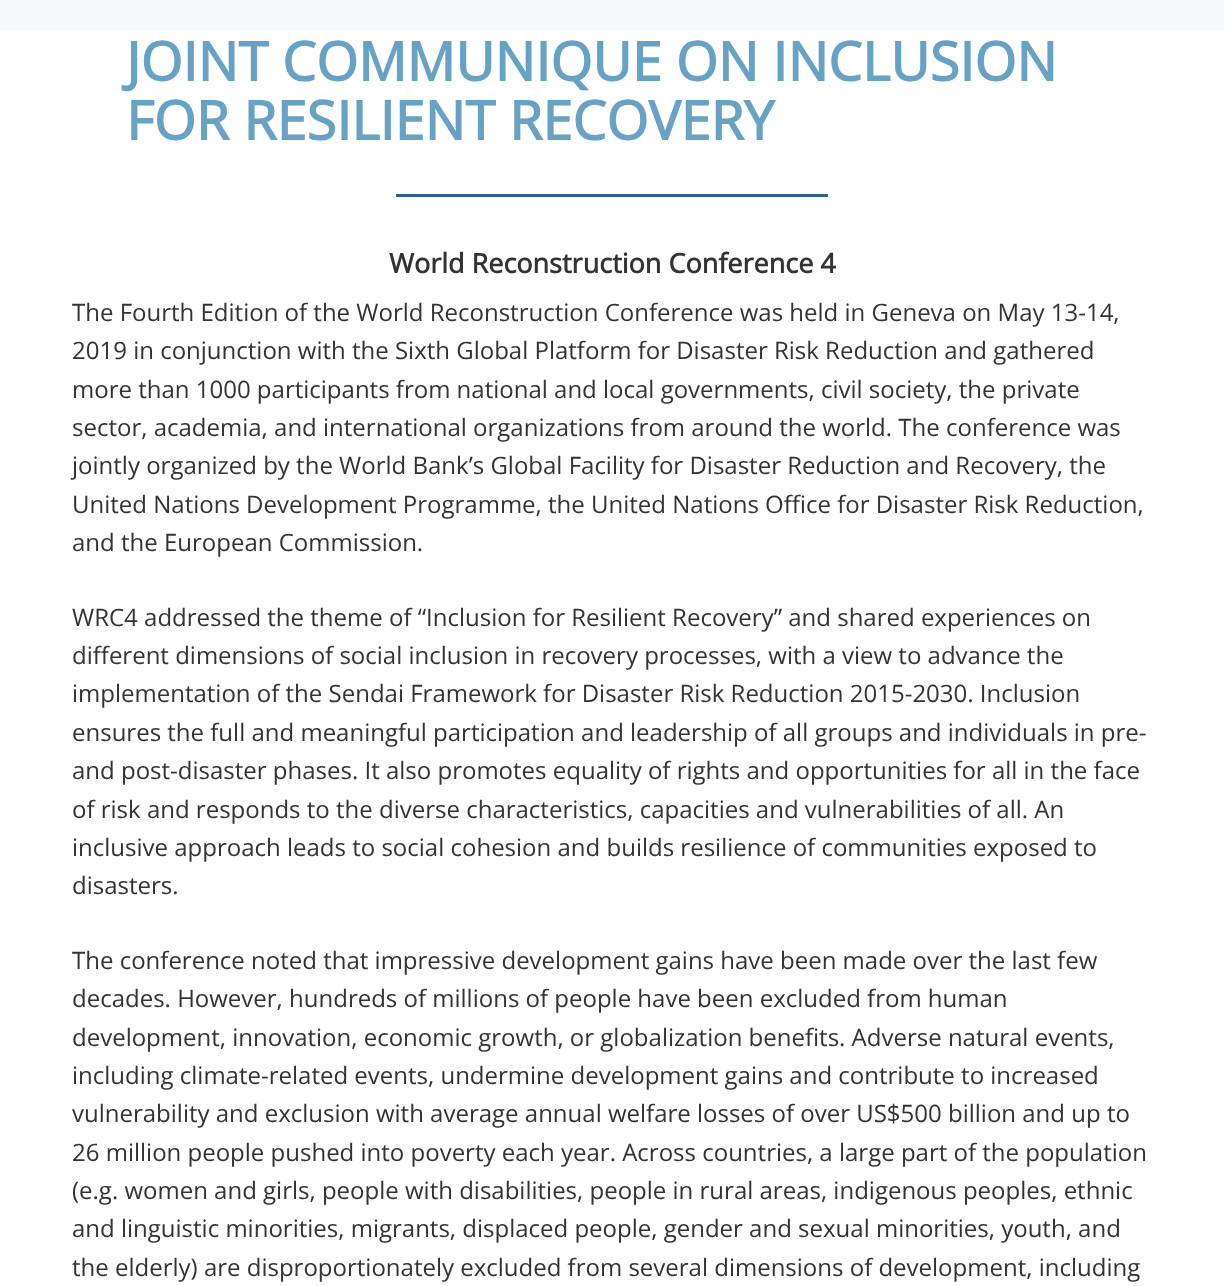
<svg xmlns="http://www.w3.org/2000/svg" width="1224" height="1286">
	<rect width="100%" height="100%" fill="#FFFFFF" />
	<rect x="0" y="0" width="1224" height="30" fill="#F7F9FC" />
	<g font-family="Open Sans" font-size="54" font-weight="700" fill="#67A1C3">
		<text x="126" y="81">JOINT COMMUNIQUE ON INCLUSION</text>
		<text x="126" y="140">FOR RESILIENT RECOVERY</text>
	</g>
	<rect x="396" y="194" width="432" height="3" fill="#31608C" />
	<text x="389" y="273" font-family="Open Sans" font-size="27" font-weight="700" fill="#333333">World Reconstruction Conference 4</text>
	<g font-family="Open Sans" font-size="24" fill="#333333">
		<text x="72" y="321">The Fourth Edition of the World Reconstruction Conference was held in Geneva on May 13-14,</text>
		<text x="72" y="359">2019 in conjunction with the Sixth Global Platform for Disaster Risk Reduction and gathered</text>
		<text x="72" y="398">more than 1000 participants from national and local governments, civil society, the private</text>
		<text x="72" y="436">sector, academia, and international organizations from around the world. The conference was</text>
		<text x="72" y="474">jointly organized by the World Bank’s Global Facility for Disaster Reduction and Recovery, the</text>
		<text x="72" y="513">United Nations Development Programme, the United Nations Office for Disaster Risk Reduction,</text>
		<text x="72" y="551">and the European Commission.</text>
		<text x="72" y="626">WRC4 addressed the theme of “Inclusion for Resilient Recovery” and shared experiences on</text>
		<text x="72" y="664">different dimensions of social inclusion in recovery processes, with a view to advance the</text>
		<text x="72" y="702">implementation of the Sendai Framework for Disaster Risk Reduction 2015-2030. Inclusion</text>
		<text x="72" y="741">ensures the full and meaningful participation and leadership of all groups and individuals in pre-</text>
		<text x="72" y="779">and post-disaster phases. It also promotes equality of rights and opportunities for all in the face</text>
		<text x="72" y="818">of risk and responds to the diverse characteristics, capacities and vulnerabilities of all. An</text>
		<text x="72" y="856">inclusive approach leads to social cohesion and builds resilience of communities exposed to</text>
		<text x="72" y="894">disasters.</text>
		<text x="72" y="969">The conference noted that impressive development gains have been made over the last few</text>
		<text x="72" y="1007">decades. However, hundreds of millions of people have been excluded from human</text>
		<text x="72" y="1046">development, innovation, economic growth, or globalization benefits. Adverse natural events,</text>
		<text x="72" y="1084">including climate-related events, undermine development gains and contribute to increased</text>
		<text x="72" y="1122">vulnerability and exclusion with average annual welfare losses of over US$500 billion and up to</text>
		<text x="72" y="1161">26 million people pushed into poverty each year. Across countries, a large part of the population</text>
		<text x="72" y="1199">(e.g. women and girls, people with disabilities, people in rural areas, indigenous peoples, ethnic</text>
		<text x="72" y="1237">and linguistic minorities, migrants, displaced people, gender and sexual minorities, youth, and</text>
		<text x="72" y="1276">the elderly) are disproportionately excluded from several dimensions of development, including</text>
	</g>
</svg>
